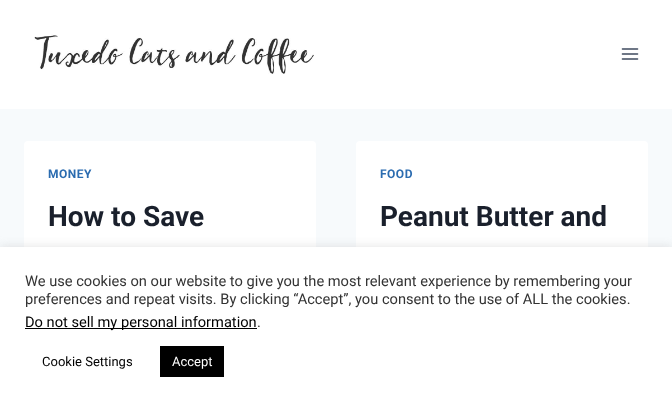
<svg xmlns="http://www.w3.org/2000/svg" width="672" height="407">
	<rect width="100%" height="100%" fill="#F7FAFC" />
	<rect x="0" y="0" width="672" height="109" fill="#FFFFFF" />
	<image x="34" y="34" width="280" height="40" href="assets/img1.png" />
	<image x="621" y="48" width="18" height="12" href="assets/img2.png" />
	<rect x="24" y="141" width="292" height="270" rx="4" fill="#FFFFFF" />
	<text x="48" y="178" font-family="Roboto" font-size="12" font-weight="700" letter-spacing="0.5" fill="#2B6CB0">MONEY</text>
	<text x="48" y="226" font-family="Roboto" font-size="28" font-weight="700" fill="#1A202C">How to Save</text>
	<rect x="356" y="141" width="292" height="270" rx="4" fill="#FFFFFF" />
	<text x="380" y="178" font-family="Roboto" font-size="12" font-weight="700" letter-spacing="0.5" fill="#2B6CB0">FOOD</text>
	<text x="380" y="226" font-family="Roboto" font-size="28" font-weight="700" fill="#1A202C">Peanut Butter and</text>
	<rect x="0" y="246" width="672" height="160" fill="#ACABAB" fill-opacity="0.3" filter="blur(5px)" />
	<rect x="0" y="247" width="672" height="160" fill="#FFFFFF" />
	<g font-family="Roboto" font-size="14.65" fill="#333333">
		<text x="25" y="286">We use cookies on our website to give you the most relevant experience by remembering your</text>
		<text x="25" y="304">preferences and repeat visits. By clicking “Accept”, you consent to the use of ALL the cookies.</text>
	</g>
	<rect x="25" y="328" width="232" height="1" fill="#000000" />
	<text x="25" y="327" font-family="Roboto" font-size="14.65" fill="#000000">Do not sell my personal information</text>
	<text x="257" y="327" font-family="Roboto" font-size="14.65" fill="#333333">.</text>
	<text x="42" y="366" font-family="Roboto" font-size="13" fill="#000000">Cookie Settings</text>
	<rect x="160" y="346" width="64" height="31" fill="#000000" />
	<text x="172" y="366" font-family="Roboto" font-size="13" fill="#FFFFFF">Accept</text>
</svg>
